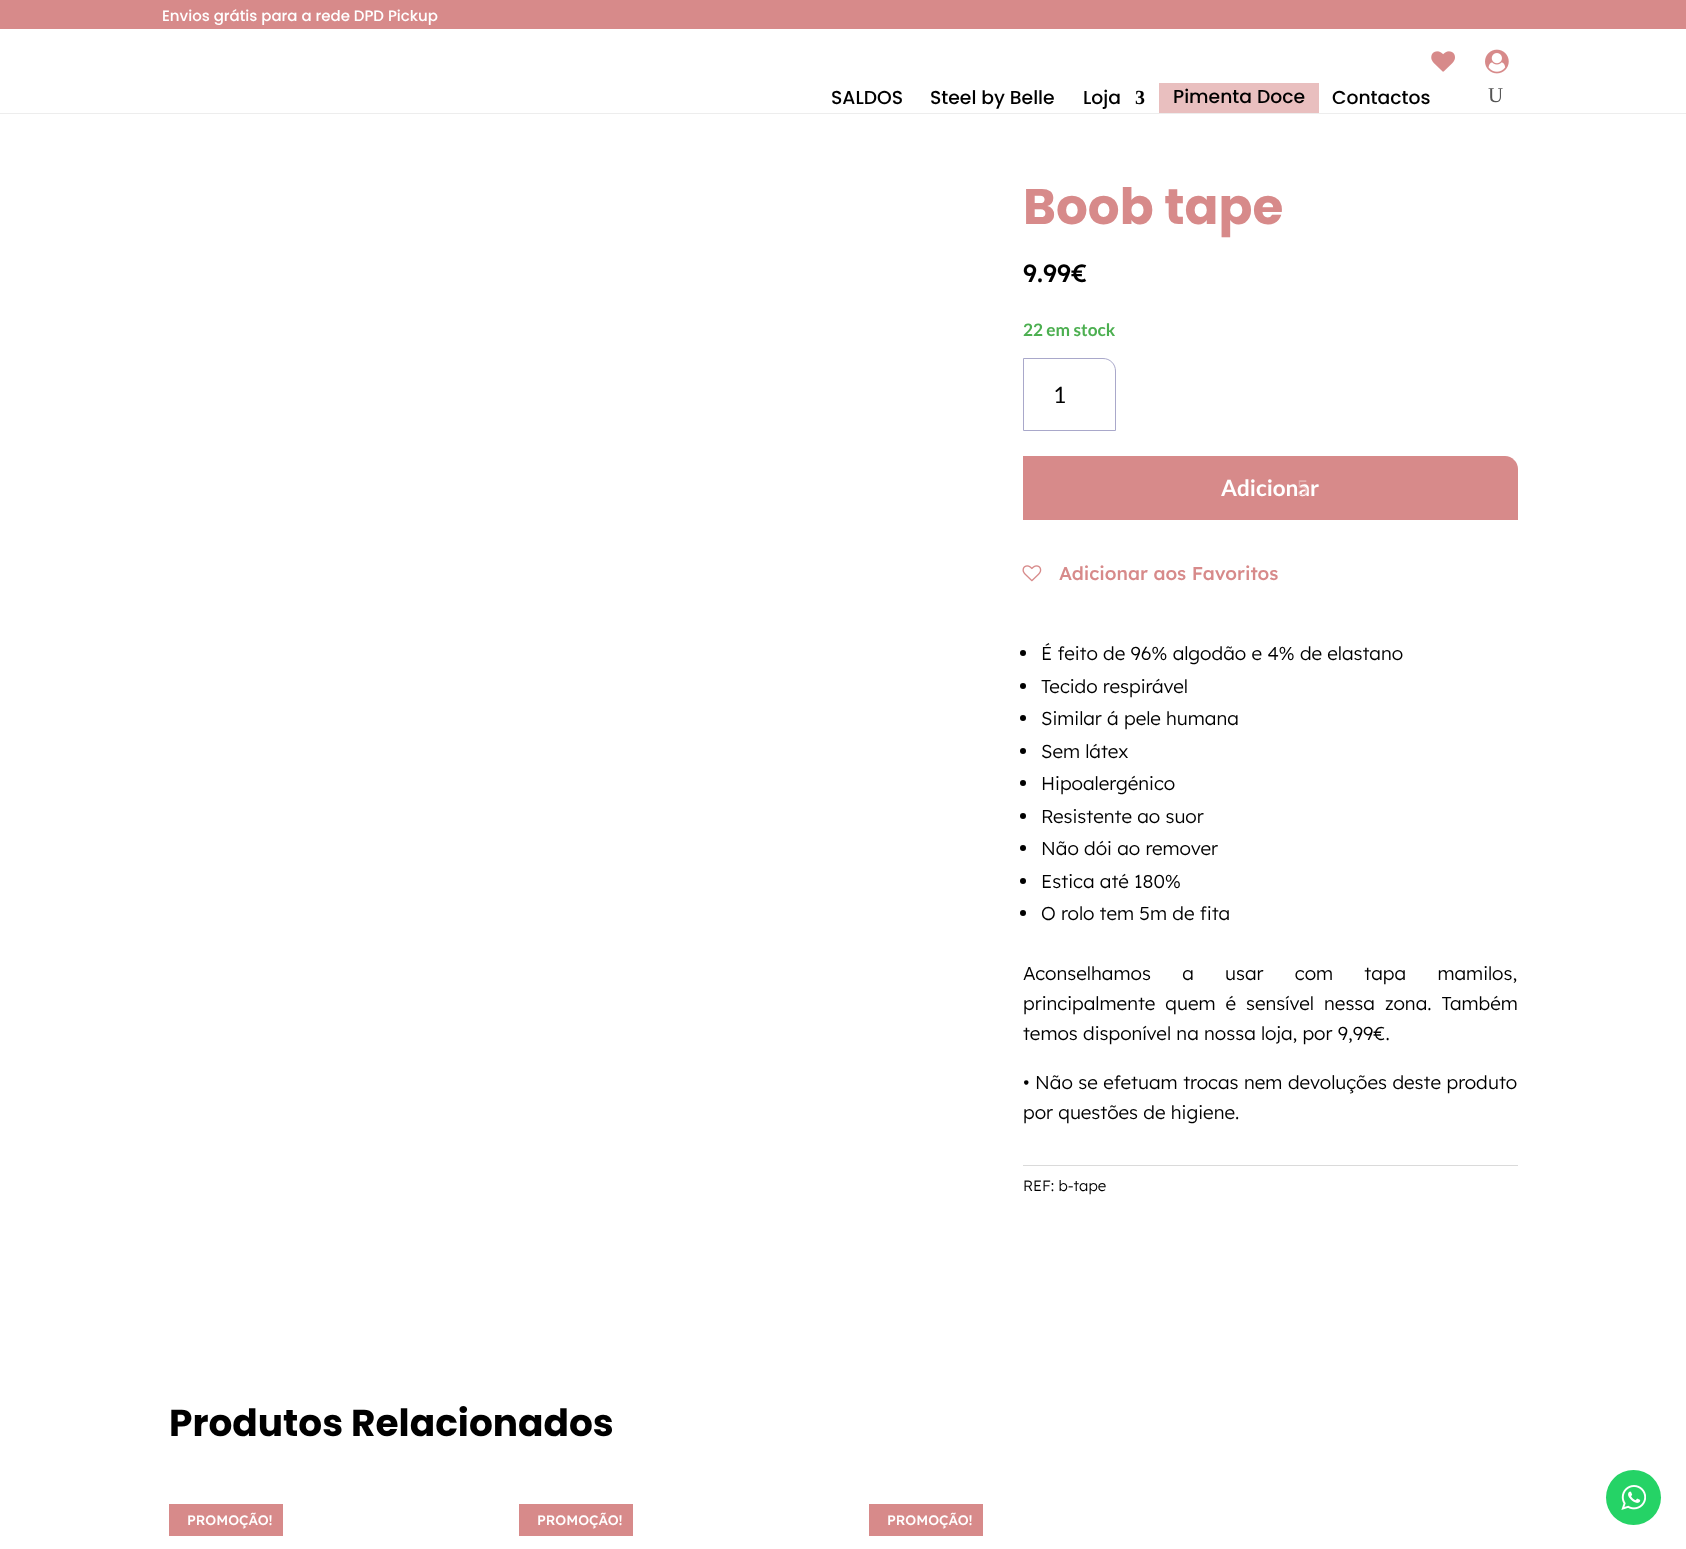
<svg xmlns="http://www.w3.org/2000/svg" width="1686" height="1549">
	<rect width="100%" height="100%" fill="#FFFFFF" />
	<rect x="0" y="0" width="1686" height="29" fill="#D78A8A" />
	<text x="162" y="21" font-family="Poppins" font-size="15" font-weight="500" fill="#FFFFFF">Envios grátis para a rede DPD Pickup</text>
	<rect x="0" y="113" width="1686" height="1" fill="#EDEDED" />
	<image x="1431" y="51" width="24" height="21" href="assets/img1.png" />
	<image x="1485" y="49" width="24" height="25" href="assets/img2.png" />
	<g font-family="Poppins" font-size="18.75" font-weight="500" fill="#000000">
		<text x="831" y="104">SALDOS</text>
		<text x="930" y="104">Steel by Belle</text>
		<text x="1083" y="104">Loja</text>
	</g>
	<text x="1135" y="104" font-family="Liberation Serif" font-size="20" font-weight="700" fill="#000000">3</text>
	<rect x="1159" y="83" width="160" height="30" fill="#E9BFBF" />
	<g font-family="Poppins" font-size="18.75" font-weight="500" fill="#000000">
		<text x="1173" y="103">Pimenta Doce</text>
		<text x="1332" y="104">Contactos</text>
	</g>
	<text x="1488" y="102" font-family="Liberation Serif" font-size="21" fill="#545454">U</text>
	<text x="1023" y="224" font-family="Poppins" font-size="50" font-weight="700" fill="#D78A8A">Boob tape</text>
	<text x="1023" y="282" font-family="Lexend Deca" font-size="25" font-weight="500" fill="#000000">9.99€</text>
	<text x="1023" y="336" font-family="Lato" font-size="17.25" font-weight="700" fill="#4CAF50">22 em stock</text>
	<path d="M1023.5 358.5H1103C1110 358.5 1115.5 364 1115.5 371V430.5H1023.5Z" fill="none" stroke="#A9A8CA" />
	<text x="1053" y="403" font-family="Lato" font-size="22.5" fill="#000000">1</text>
	<path d="M1023 456H1505C1512 456 1518 462 1518 469V520H1023Z" fill="#D78A8A" />
	<text x="1221" y="496" font-family="Lato" font-size="22.5" font-weight="700" fill="#FFFFFF">Adicionar</text>
	<text x="1297" y="495" font-family="Liberation Serif" font-size="22.5" fill="#E5B2B2">5</text>
	<image x="1022" y="565" width="20" height="17" href="assets/img3.png" />
	<text x="1059" y="580" font-family="Lexend Deca" font-size="18.75" font-weight="500" fill="#D78A8A">Adicionar aos Favoritos</text>
	<circle cx="1023" cy="653" r="3" fill="#000000" />
	<text x="1041" y="660" font-family="Lexend Deca" font-size="18.75" font-weight="300" fill="#000000">É feito de 96% algodão e 4% de elastano</text>
	<circle cx="1023" cy="686" r="3" fill="#000000" />
	<text x="1041" y="693" font-family="Lexend Deca" font-size="18.75" font-weight="300" fill="#000000">Tecido respirável</text>
	<circle cx="1023" cy="718" r="3" fill="#000000" />
	<text x="1041" y="725" font-family="Lexend Deca" font-size="18.75" font-weight="300" fill="#000000">Similar á pele humana</text>
	<circle cx="1023" cy="751" r="3" fill="#000000" />
	<text x="1041" y="758" font-family="Lexend Deca" font-size="18.75" font-weight="300" fill="#000000">Sem látex</text>
	<circle cx="1023" cy="783" r="3" fill="#000000" />
	<text x="1041" y="790" font-family="Lexend Deca" font-size="18.75" font-weight="300" fill="#000000">Hipoalergénico</text>
	<circle cx="1023" cy="816" r="3" fill="#000000" />
	<text x="1041" y="823" font-family="Lexend Deca" font-size="18.75" font-weight="300" fill="#000000">Resistente ao suor</text>
	<circle cx="1023" cy="848" r="3" fill="#000000" />
	<text x="1041" y="855" font-family="Lexend Deca" font-size="18.75" font-weight="300" fill="#000000">Não dói ao remover</text>
	<circle cx="1023" cy="881" r="3" fill="#000000" />
	<text x="1041" y="888" font-family="Lexend Deca" font-size="18.75" font-weight="300" fill="#000000">Estica até 180%</text>
	<circle cx="1023" cy="913" r="3" fill="#000000" />
	<g font-family="Lexend Deca" font-size="18.75" font-weight="300" fill="#000000">
		<text x="1041" y="920">O rolo tem 5m de fita</text>
		<text x="1023" y="980" word-spacing="26">Aconselhamos a usar com tapa mamilos,</text>
		<text x="1023" y="1010" word-spacing="4.75">principalmente quem é sensível nessa zona. Também</text>
		<text x="1023" y="1040">temos disponível na nossa loja, por 9,99€.</text>
		<text x="1023" y="1089" word-spacing="0.25">• Não se efetuam trocas nem devoluções deste produto</text>
		<text x="1023" y="1119">por questões de higiene.</text>
	</g>
	<rect x="1023" y="1165" width="495" height="1" fill="#DADADA" />
	<text x="1023" y="1191" font-family="Lexend Deca" font-size="15" font-weight="300" fill="#000000">REF: b-tape</text>
	<text x="169" y="1436" font-family="Poppins" font-size="37.5" font-weight="700" fill="#000000">Produtos Relacionados</text>
	<rect x="169" y="1504" width="114" height="32" fill="#D78A8A" />
	<text x="187" y="1525" font-family="Lexend Deca" font-size="13.75" font-weight="500" fill="#FFFFFF">PROMOÇÃO!</text>
	<rect x="519" y="1504" width="114" height="32" fill="#D78A8A" />
	<text x="537" y="1525" font-family="Lexend Deca" font-size="13.75" font-weight="500" fill="#FFFFFF">PROMOÇÃO!</text>
	<rect x="869" y="1504" width="114" height="32" fill="#D78A8A" />
	<text x="887" y="1525" font-family="Lexend Deca" font-size="13.75" font-weight="500" fill="#FFFFFF">PROMOÇÃO!</text>
	<circle cx="1633.5" cy="1497.5" r="27.5" fill="#25D366" />
	<image x="1621" y="1485" width="25" height="25" href="assets/img4.png" />
</svg>
